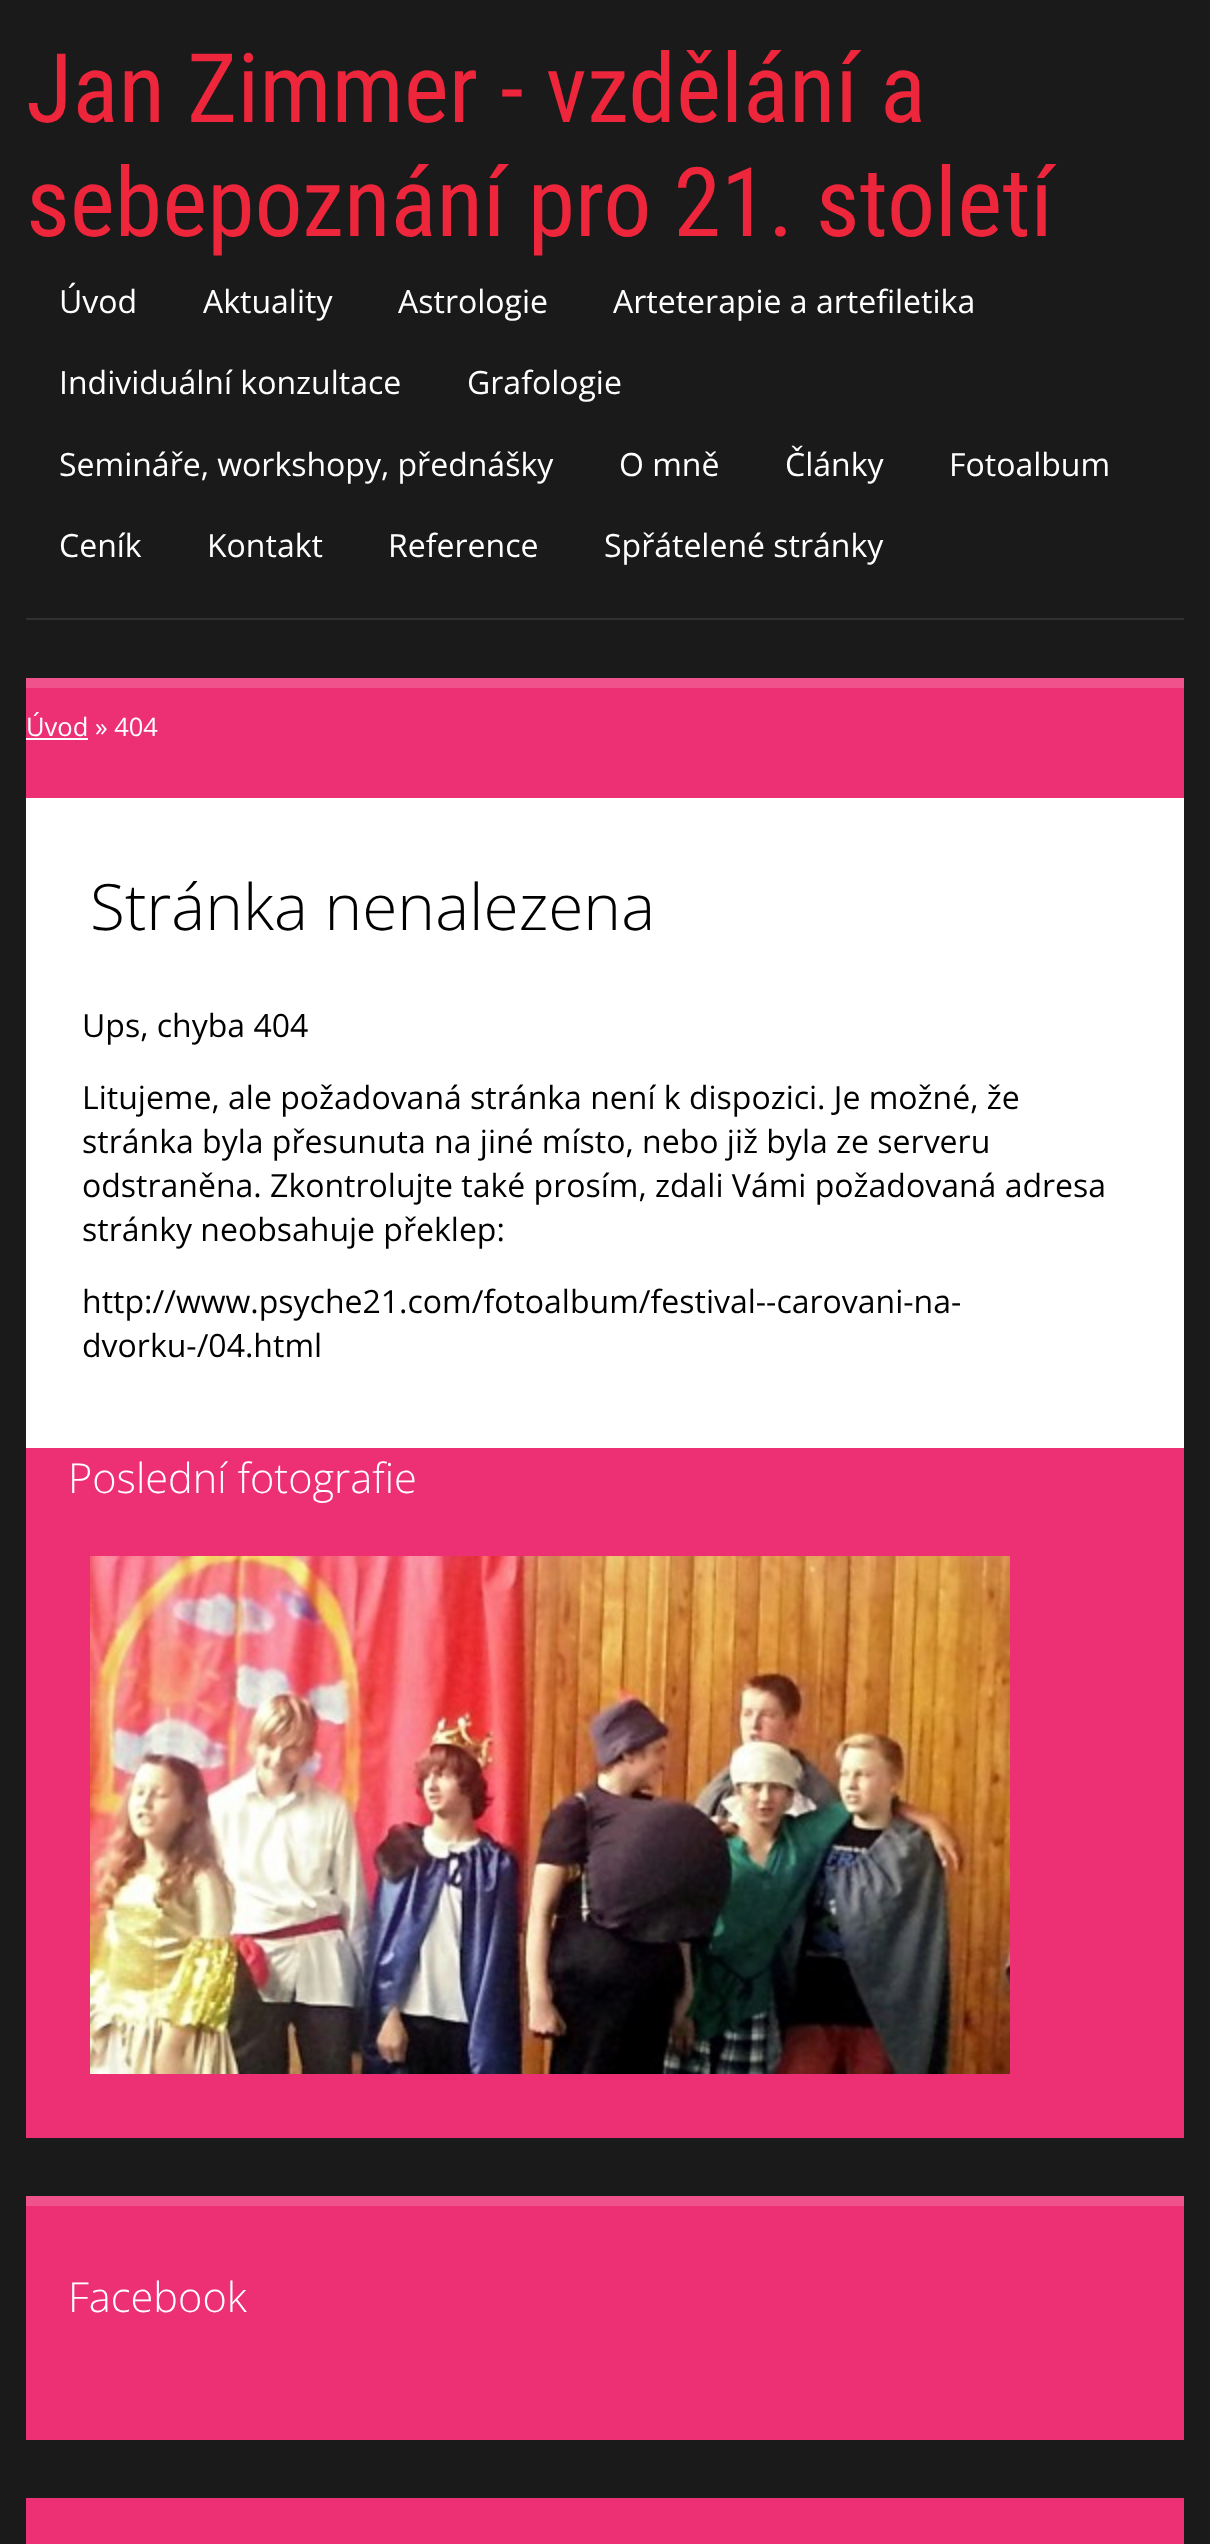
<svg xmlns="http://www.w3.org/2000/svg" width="1210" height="2544">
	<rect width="100%" height="100%" fill="#1A1A1A" />
	<rect x="26" y="618" width="1158" height="2" fill="#303030" />
	<g font-family="Roboto Condensed" font-size="96" fill="#ED263C">
		<text x="26" y="122">Jan Zimmer - vzdělání a</text>
		<text x="26" y="236">sebepoznání pro 21. století</text>
	</g>
	<g font-family="Open Sans" font-size="32" fill="#FFFFFF">
		<text x="59" y="313">Úvod</text>
		<text x="203" y="313">Aktuality</text>
		<text x="398" y="313">Astrologie</text>
		<text x="613" y="313">Arteterapie a artefiletika</text>
		<text x="59" y="394">Individuální konzultace</text>
		<text x="467" y="394">Grafologie</text>
		<text x="59" y="476">Semináře, workshopy, přednášky</text>
		<text x="619" y="476">O mně</text>
		<text x="785" y="476">Články</text>
		<text x="949" y="476">Fotoalbum</text>
		<text x="59" y="557">Ceník</text>
		<text x="207" y="557">Kontakt</text>
		<text x="388" y="557">Reference</text>
		<text x="604" y="557">Spřátelené stránky</text>
	</g>
	<rect x="26" y="688" width="1158" height="1450" fill="#ED3074" />
	<text x="26" y="736" font-family="Open Sans" font-size="25.5" fill="#FFFFFF">Úvod » 404</text>
	<rect x="26" y="738" width="62" height="2" fill="#FFFFFF" />
	<rect x="26" y="798" width="1158" height="650" fill="#FFFFFF" />
	<text x="90" y="930" font-family="Open Sans" font-size="64" font-weight="300" fill="#000000">Stránka nenalezena</text>
	<g font-family="Open Sans" font-size="32" fill="#000000">
		<text x="82" y="1037">Ups, chyba 404</text>
		<text x="82" y="1109">Litujeme, ale požadovaná stránka není k dispozici. Je možné, že</text>
		<text x="82" y="1153">stránka byla přesunuta na jiné místo, nebo již byla ze serveru</text>
		<text x="82" y="1197">odstraněna. Zkontrolujte také prosím, zdali Vámi požadovaná adresa</text>
		<text x="82" y="1241">stránky neobsahuje překlep:</text>
		<text x="82" y="1313">http://www.psyche21.com/fotoalbum/festival--carovani-na-</text>
		<text x="82" y="1357">dvorku-/04.html</text>
	</g>
	<rect x="26" y="678" width="1158" height="10" fill="#F0528B" />
	<text x="68" y="1493" font-family="Open Sans" font-size="41.5" font-weight="300" fill="#FFFFFF">Poslední fotografie</text>
	<image x="90" y="1556" width="920" height="518" href="assets/img1.png" />
	<rect x="26" y="2206" width="1158" height="234" fill="#ED3074" />
	<rect x="26" y="2196" width="1158" height="10" fill="#F0528B" />
	<text x="68" y="2312" font-family="Open Sans" font-size="41.5" font-weight="300" fill="#FFFFFF">Facebook</text>
	<rect x="26" y="2498" width="1158" height="46" fill="#ED3074" />
</svg>
